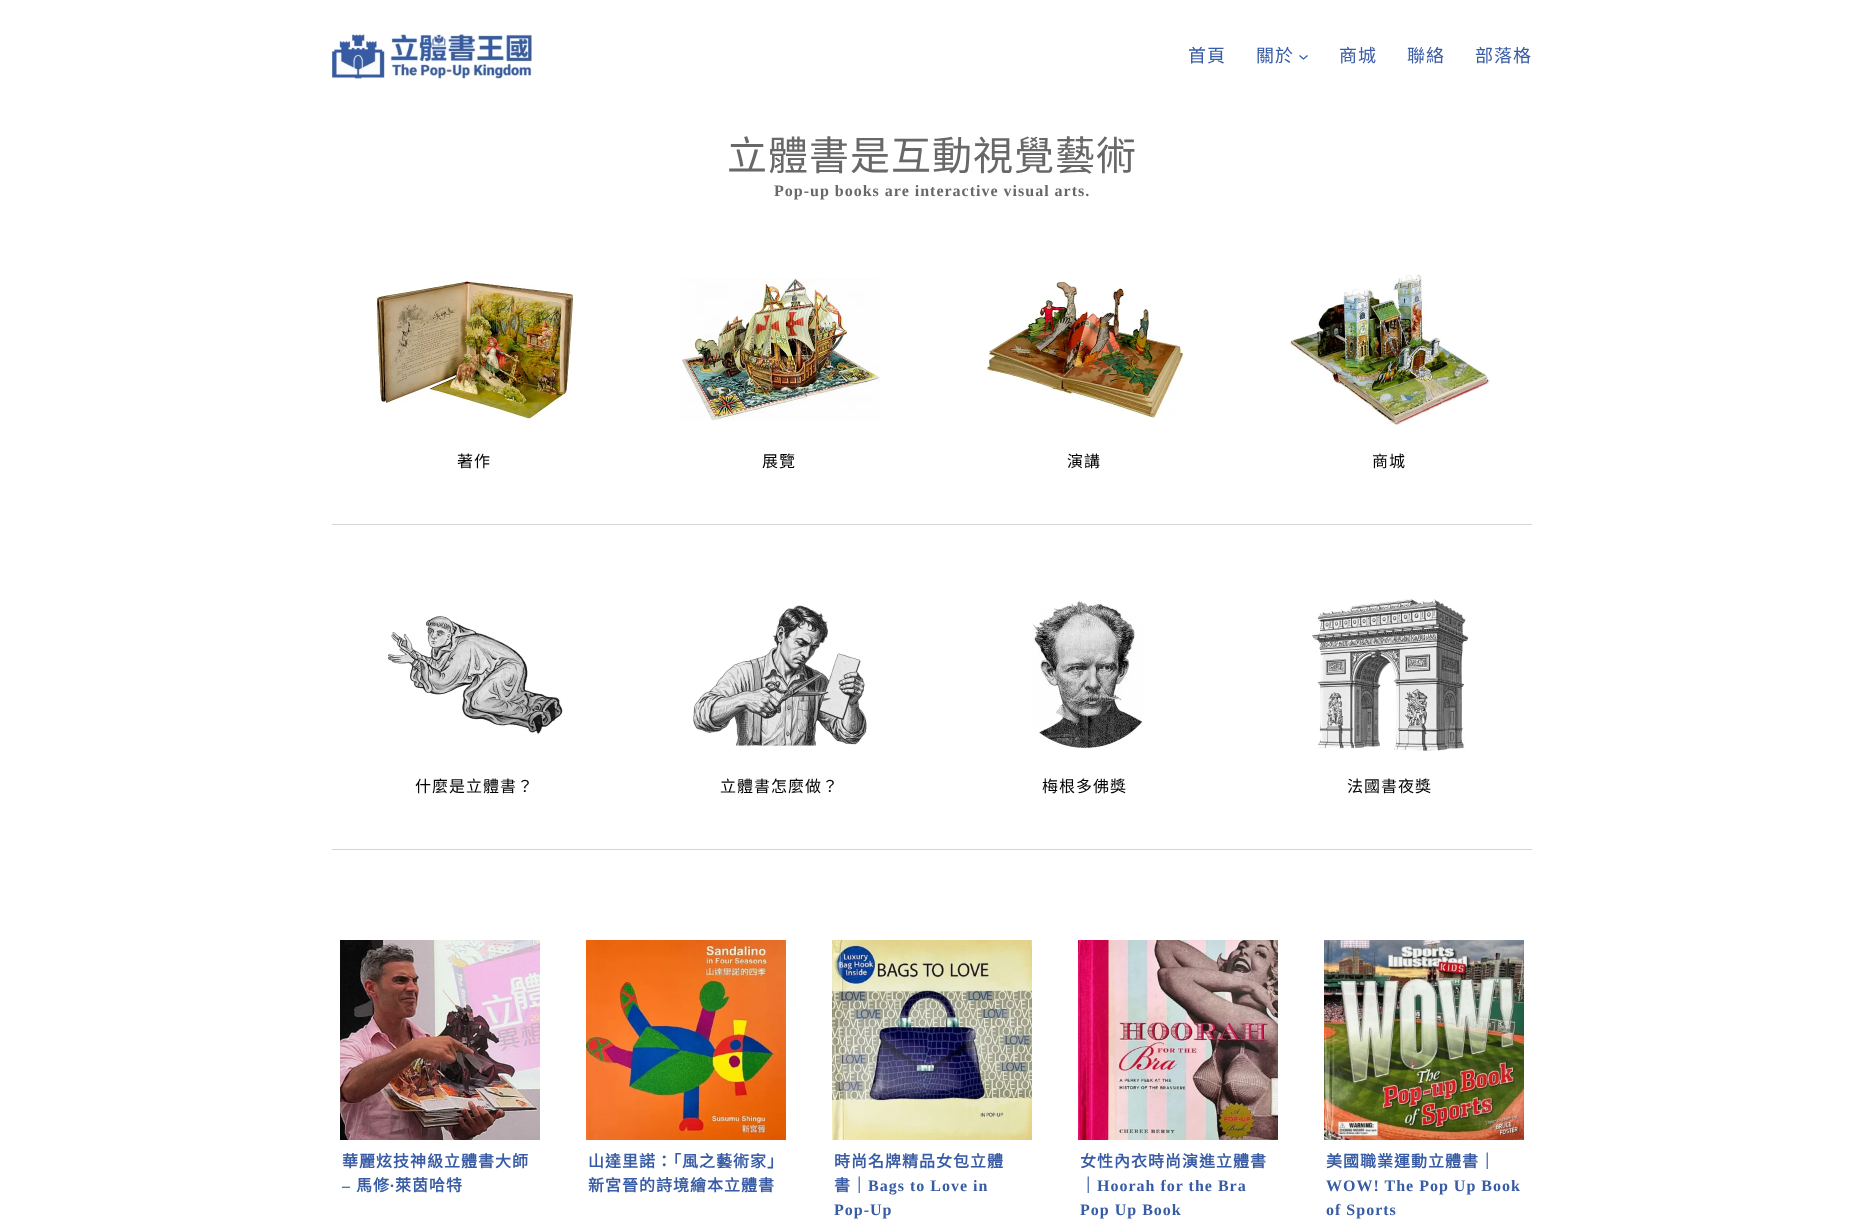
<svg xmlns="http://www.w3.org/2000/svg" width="1864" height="1222">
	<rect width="100%" height="100%" fill="#FFFFFF" />
	<image x="332" y="34" width="200" height="45" href="assets/img1.png" />
	<g font-family="Noto Sans CJK TC" font-size="18" letter-spacing="1" fill="#375BA4">
		<text x="1188" y="62">首頁</text>
		<text x="1256" y="62">關於</text>
	</g>
	<path d="M1299.5 55.5L1303.5 59L1307.5 55.5" fill="none" stroke="#375BA4" stroke-width="1.3" />
	<g font-family="Noto Sans CJK TC" font-size="18" letter-spacing="1" fill="#375BA4">
		<text x="1339" y="62">商城</text>
		<text x="1407" y="62">聯絡</text>
		<text x="1475" y="62">部落格</text>
	</g>
	<text x="727" y="170" font-family="Noto Sans CJK TC" font-size="40" letter-spacing="1" fill="#686868">立體書是互動視覺藝術</text>
	<text x="774" y="196" font-family="Liberation Serif" font-size="16" font-weight="700" letter-spacing="1" fill="#686868">Pop-up books are interactive visual arts.</text>
	<rect x="332" y="524" width="1200" height="1" fill="#D5D5D5" />
	<image x="375" y="281" width="200" height="139" href="assets/img2.png" />
	<text x="457" y="467" font-family="Noto Sans CJK TC" font-size="16" letter-spacing="1" fill="#000000">著作</text>
	<image x="680" y="278" width="200" height="143" href="assets/img3.png" />
	<text x="762" y="467" font-family="Noto Sans CJK TC" font-size="16" letter-spacing="1" fill="#000000">展覽</text>
	<image x="985" y="281" width="200" height="137" href="assets/img4.png" />
	<text x="1067" y="467" font-family="Noto Sans CJK TC" font-size="16" letter-spacing="1" fill="#000000">演講</text>
	<image x="1290" y="274" width="200" height="152" href="assets/img5.png" />
	<text x="1372" y="467" font-family="Noto Sans CJK TC" font-size="16" letter-spacing="1" fill="#000000">商城</text>
	<rect x="332" y="849" width="1200" height="1" fill="#D5D5D5" />
	<image x="388" y="615" width="175" height="119" href="assets/img6.png" />
	<text x="415" y="792" font-family="Noto Sans CJK TC" font-size="16" letter-spacing="1" fill="#000000">什麼是立體書？</text>
	<image x="693" y="605" width="174" height="142" href="assets/img7.png" />
	<text x="720" y="792" font-family="Noto Sans CJK TC" font-size="16" letter-spacing="1" fill="#000000">立體書怎麼做？</text>
	<image x="1032" y="601" width="111" height="148" href="assets/img8.png" />
	<text x="1042" y="792" font-family="Noto Sans CJK TC" font-size="16" letter-spacing="1" fill="#000000">梅根多佛獎</text>
	<image x="1312" y="599" width="157" height="152" href="assets/img9.png" />
	<text x="1347" y="792" font-family="Noto Sans CJK TC" font-size="16" letter-spacing="1" fill="#000000">法國書夜獎</text>
	<image x="340" y="940" width="200" height="200" href="assets/img10.png" />
	<text x="342" y="1167" font-family="Noto Sans CJK TC" font-size="16" font-weight="700" letter-spacing="1" fill="#375BA4">華麗炫技神級立體書大師</text>
	<text x="342" y="1191" font-family="Liberation Serif" font-size="16" font-weight="700" letter-spacing="1" fill="#375BA4">–</text>
	<text x="356" y="1191" font-family="Noto Sans CJK TC" font-size="16" font-weight="700" letter-spacing="1" fill="#375BA4">馬修</text>
	<text x="390" y="1191" font-family="Liberation Serif" font-size="16" font-weight="700" letter-spacing="1" fill="#375BA4">∙</text>
	<text x="395" y="1191" font-family="Noto Sans CJK TC" font-size="16" font-weight="700" letter-spacing="1" fill="#375BA4">萊茵哈特</text>
	<image x="586" y="940" width="200" height="200" href="assets/img11.png" />
	<g font-family="Noto Sans CJK TC" font-size="16" font-weight="700" letter-spacing="1" fill="#375BA4">
		<text x="588" y="1167">山達里諾：「風之藝術家」</text>
		<text x="588" y="1191">新宮晉的詩境繪本立體書</text>
	</g>
	<image x="832" y="940" width="200" height="200" href="assets/img12.png" />
	<g font-family="Noto Sans CJK TC" font-size="16" font-weight="700" letter-spacing="1" fill="#375BA4">
		<text x="834" y="1167">時尚名牌精品女包立體</text>
		<text x="834" y="1191">書｜</text>
	</g>
	<g font-family="Liberation Serif" font-size="16" font-weight="700" letter-spacing="1" fill="#375BA4">
		<text x="868" y="1191">Bags to Love in</text>
		<text x="834" y="1215">Pop-Up</text>
	</g>
	<image x="1078" y="940" width="200" height="200" href="assets/img13.png" />
	<g font-family="Noto Sans CJK TC" font-size="16" font-weight="700" letter-spacing="1" fill="#375BA4">
		<text x="1080" y="1167">女性內衣時尚演進立體書</text>
		<text x="1080" y="1191">｜</text>
	</g>
	<g font-family="Liberation Serif" font-size="16" font-weight="700" letter-spacing="1" fill="#375BA4">
		<text x="1097" y="1191">Hoorah for the Bra</text>
		<text x="1080" y="1215">Pop Up Book</text>
	</g>
	<image x="1324" y="940" width="200" height="200" href="assets/img14.png" />
	<text x="1326" y="1167" font-family="Noto Sans CJK TC" font-size="16" font-weight="700" letter-spacing="1" fill="#375BA4">美國職業運動立體書｜</text>
	<g font-family="Liberation Serif" font-size="16" font-weight="700" letter-spacing="1" fill="#375BA4">
		<text x="1326" y="1191">WOW! The Pop Up Book</text>
		<text x="1326" y="1215">of Sports</text>
	</g>
</svg>
